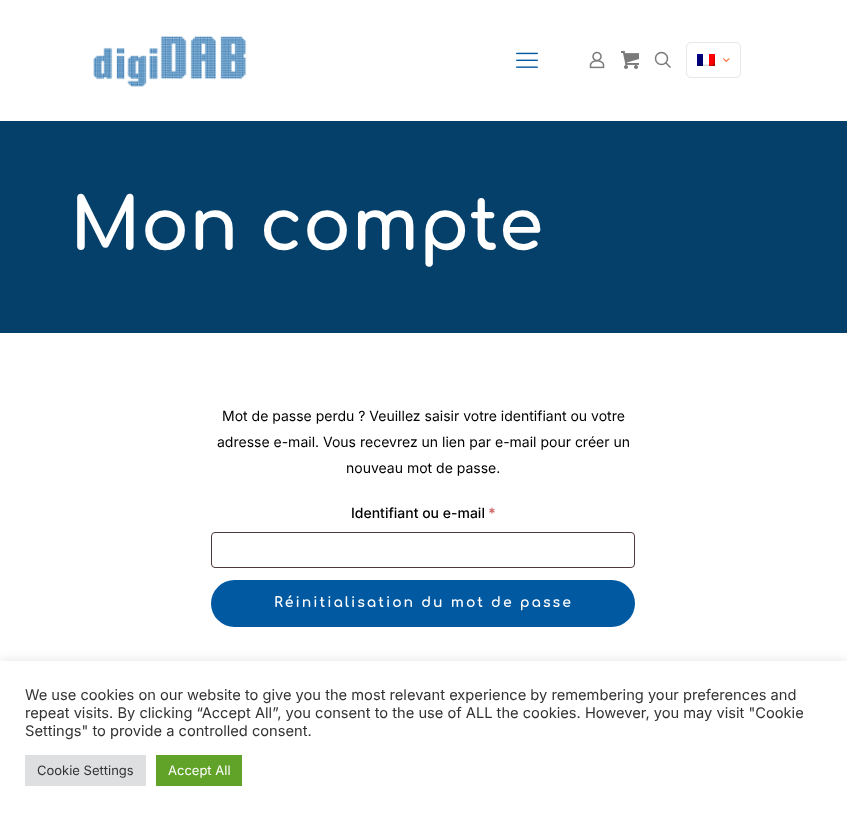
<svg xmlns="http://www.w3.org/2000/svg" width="847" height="816">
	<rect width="100%" height="100%" fill="#FFFFFF" />
	<image x="93" y="36" width="154" height="51" href="assets/img1.png" />
	<image x="516" y="52" width="22" height="16" href="assets/img2.png" />
	<image x="589" y="51" width="16" height="18" href="assets/img3.png" />
	<image x="621" y="51" width="18" height="18" href="assets/img4.png" />
	<circle cx="661.5" cy="58.5" r="6" fill="none" stroke="#7A7A7A" stroke-width="1.5" />
	<path d="M665.5 62.5L670.5 67.5" fill="none" stroke="#7A7A7A" stroke-width="1.5" />
	<rect x="686.5" y="42.5" width="54" height="35" rx="4.5" fill="none" stroke="#E6E6E6" />
	<image x="697" y="54" width="18" height="12" href="assets/img5.png" />
	<image x="723" y="58" width="7" height="4" href="assets/img6.png" />
	<rect x="0" y="121" width="847" height="212" fill="#05406B" />
	<text x="70" y="250" font-family="Comfortaa" font-size="72" font-weight="700" fill="#FFFFFF">Mon compte</text>
	<g font-family="Inter" font-size="14" fill="#000000">
		<text x="222" y="421">Mot de passe perdu ? Veuillez saisir votre identifiant ou votre</text>
		<text x="217" y="447">adresse e-mail. Vous recevrez un lien par e-mail pour créer un</text>
		<text x="346" y="473">nouveau mot de passe.</text>
	</g>
	<text x="351" y="518" font-family="Inter" font-size="14" font-weight="500" fill="#000000">Identifiant ou e-mail</text>
	<text x="488" y="518" font-family="Inter" font-size="14" font-weight="700" fill="#CC6666">*</text>
	<rect x="211.5" y="532.5" width="423" height="35" rx="3.5" fill="none" stroke="#4D3939" />
	<rect x="211" y="580" width="424" height="47" rx="23.5" fill="#0159A1" />
	<text x="274" y="607" font-family="Comfortaa" font-size="14" font-weight="700" letter-spacing="2" fill="#FFFFFF">Réinitialisation du mot de passe</text>
	<rect x="0" y="660" width="847" height="155" fill="#ACABAB" fill-opacity="0.3" filter="blur(5px)" />
	<rect x="0" y="661" width="847" height="155" fill="#FFFFFF" />
	<g font-family="Inter" font-size="14.67" fill="#333333">
		<text x="25" y="700">We use cookies on our website to give you the most relevant experience by remembering your preferences and</text>
		<text x="25" y="718">repeat visits. By clicking “Accept All”, you consent to the use of ALL the cookies. However, you may visit "Cookie</text>
		<text x="25" y="736">Settings" to provide a controlled consent.</text>
	</g>
	<rect x="25" y="755" width="121" height="31" fill="#DEDFE0" />
	<text x="37" y="775" font-family="Inter" font-size="13" fill="#333333">Cookie Settings</text>
	<rect x="156" y="755" width="86" height="31" fill="#61A229" />
	<text x="168" y="775" font-family="Inter" font-size="13" fill="#FFFFFF">Accept All</text>
</svg>
